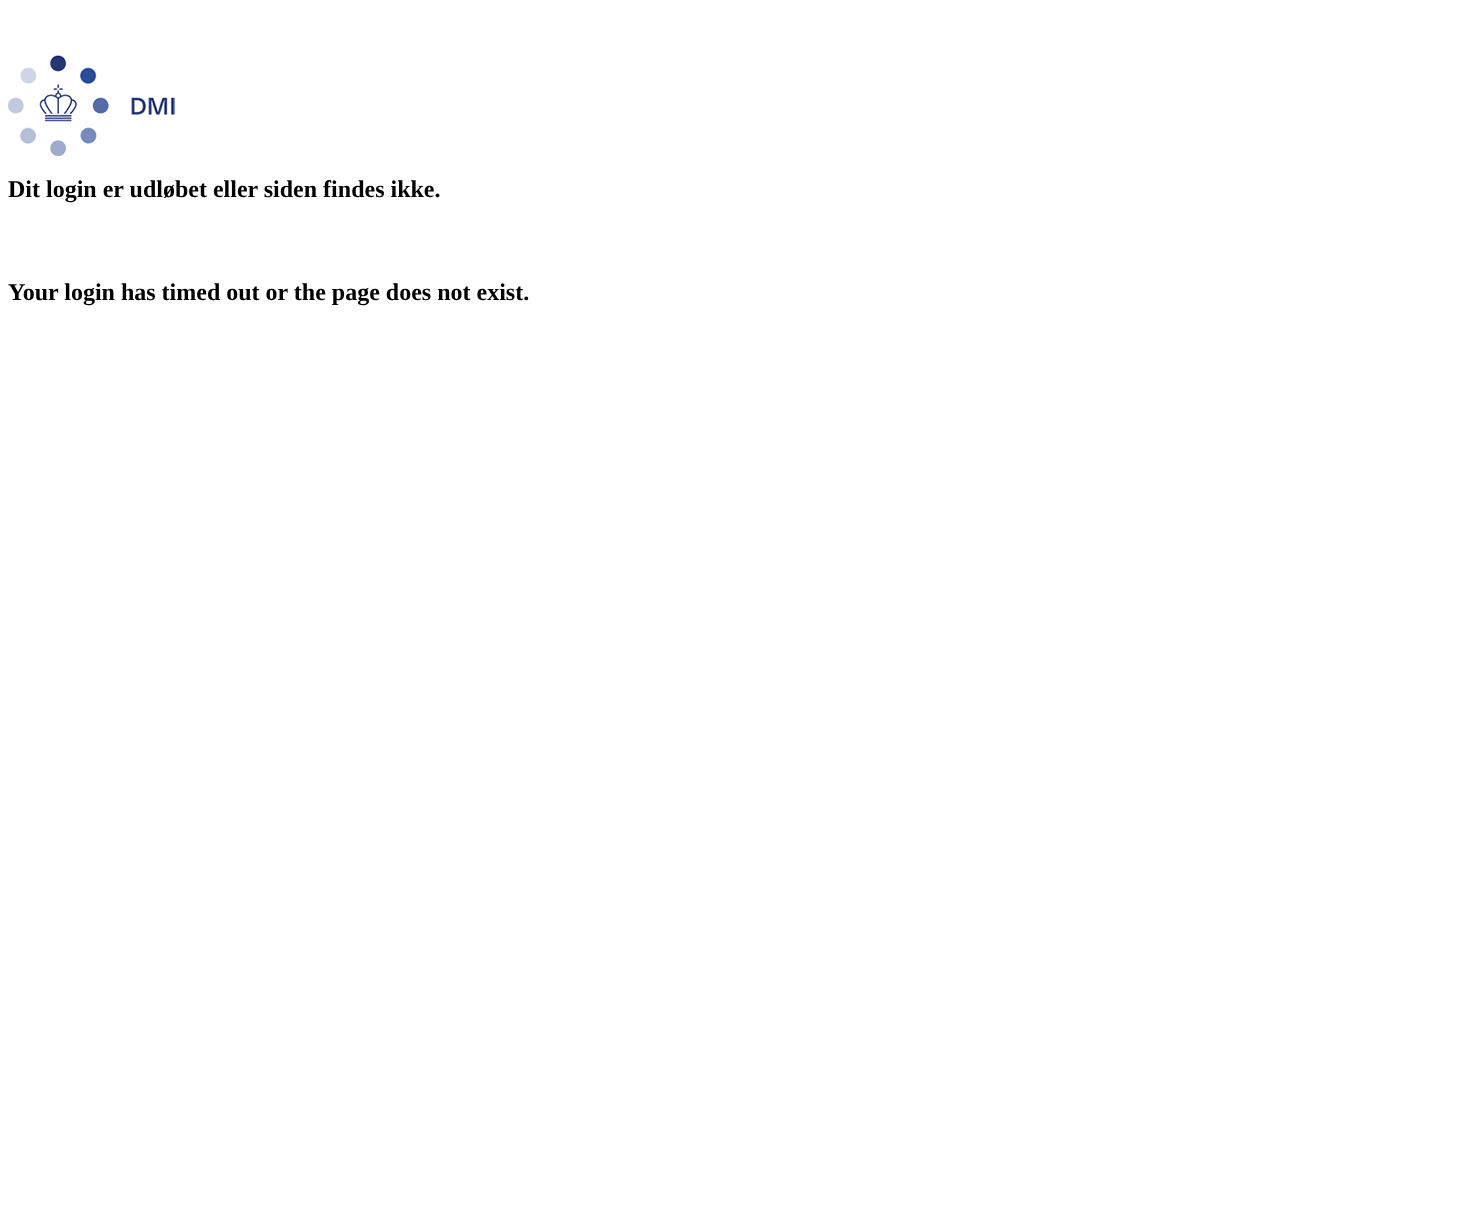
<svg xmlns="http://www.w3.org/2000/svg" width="1469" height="1208">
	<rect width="100%" height="100%" fill="#FFFFFF" />
	<image x="8" y="55" width="168" height="101" href="assets/img1.png" />
	<g font-family="Liberation Serif" font-size="24" font-weight="700" fill="#000000">
		<text x="8" y="197">Dit login er udløbet eller siden findes ikke.</text>
		<text x="8" y="300">Your login has timed out or the page does not exist.</text>
	</g>
</svg>
